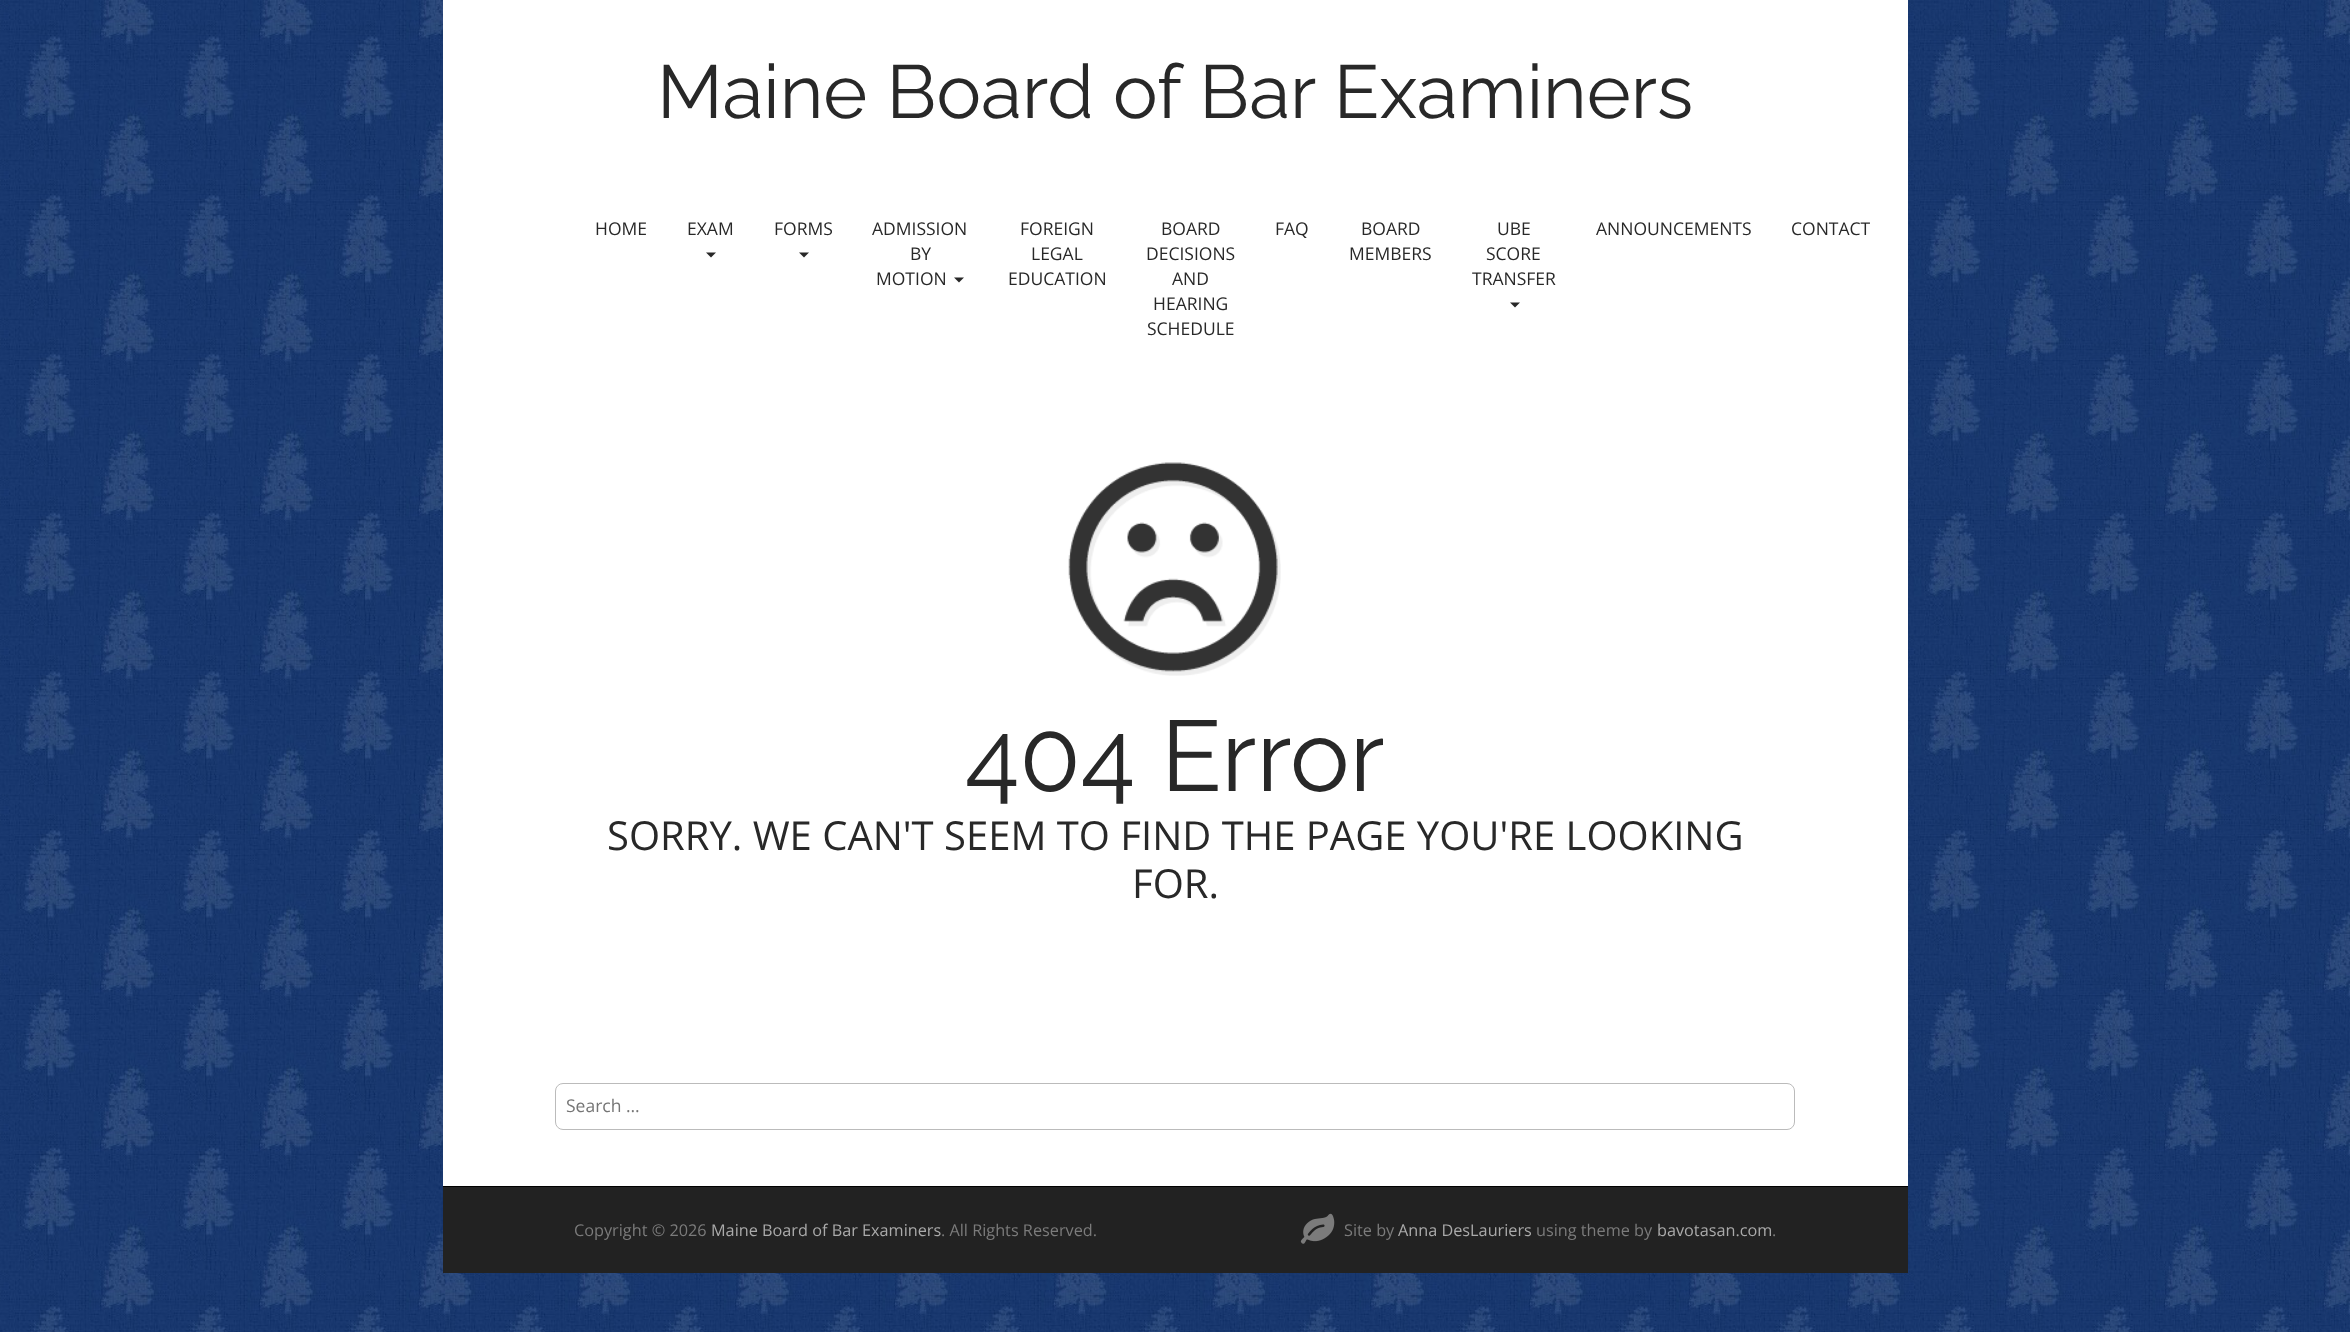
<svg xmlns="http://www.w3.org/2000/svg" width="2350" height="1332">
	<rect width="100%" height="100%" fill="#FFFFFF" />
	<image x="0" y="0" width="2350" height="1332" href="assets/img1.png" />
	<rect x="443" y="0" width="1465" height="1186" fill="#FFFFFF" />
	<text x="657" y="118" font-family="Raleway" font-size="75" font-weight="100" fill="#282828">Maine Board of Bar Examiners</text>
	<g font-family="Open Sans" font-size="17.5" fill="#282828">
		<text x="595" y="235">HOME</text>
		<text x="687" y="235">EXAM</text>
	</g>
	<path d="M706 252.5H716L711 257.5Z" fill="#282828" />
	<text x="774" y="235" font-family="Open Sans" font-size="17.5" fill="#282828">FORMS</text>
	<path d="M799 252.5H809L804 257.5Z" fill="#282828" />
	<g font-family="Open Sans" font-size="17.5" fill="#282828">
		<text x="872" y="235">ADMISSION</text>
		<text x="910" y="260">BY</text>
		<text x="876" y="285">MOTION</text>
	</g>
	<path d="M954 277.5H964L959 282.5Z" fill="#282828" />
	<g font-family="Open Sans" font-size="17.5" fill="#282828">
		<text x="1020" y="235">FOREIGN</text>
		<text x="1031" y="260">LEGAL</text>
		<text x="1008" y="285">EDUCATION</text>
		<text x="1161" y="235">BOARD</text>
		<text x="1146" y="260">DECISIONS</text>
		<text x="1172" y="285">AND</text>
		<text x="1153" y="310">HEARING</text>
		<text x="1147" y="335">SCHEDULE</text>
		<text x="1275" y="235">FAQ</text>
		<text x="1361" y="235">BOARD</text>
		<text x="1349" y="260">MEMBERS</text>
		<text x="1497" y="235">UBE</text>
		<text x="1486" y="260">SCORE</text>
		<text x="1472" y="285">TRANSFER</text>
	</g>
	<path d="M1510 302.5H1520L1515 307.5Z" fill="#282828" />
	<g font-family="Open Sans" font-size="17.5" fill="#282828">
		<text x="1596" y="235">ANNOUNCEMENTS</text>
		<text x="1791" y="235">CONTACT</text>
	</g>
	<image x="1068" y="462" width="213" height="214" href="assets/img2.png" />
	<text x="965" y="791" font-family="Raleway" font-size="100" font-weight="100" fill="#282828">404 Error</text>
	<g font-family="Open Sans" font-size="40" fill="#282828">
		<text x="607" y="850">SORRY. WE CAN'T SEEM TO FIND THE PAGE YOU'RE LOOKING</text>
		<text x="1132" y="898">FOR.</text>
	</g>
	<rect x="555.5" y="1083.5" width="1239" height="46" rx="7.5" fill="none" stroke="#BBBBBB" />
	<text x="566" y="1112" font-family="Open Sans" font-size="17.5" fill="#757575">Search …</text>
	<rect x="443" y="1187" width="1465" height="86" fill="#222222" />
	<rect x="443" y="1186" width="1465" height="1" fill="#000000" />
	<text x="574" y="1236" font-family="Open Sans" font-size="16.25" fill="#7B7B7B">Copyright © 2026</text>
	<text x="711" y="1236" font-family="Open Sans" font-size="16.25" fill="#AAAAAA">Maine Board of Bar Examiners</text>
	<text x="941" y="1236" font-family="Open Sans" font-size="16.25" fill="#7B7B7B">. All Rights Reserved.</text>
	<image x="1300" y="1213" width="35" height="31" href="assets/img3.png" />
	<text x="1344" y="1236" font-family="Open Sans" font-size="16.25" fill="#7B7B7B">Site by</text>
	<text x="1398" y="1236" font-family="Open Sans" font-size="16.25" fill="#AAAAAA">Anna DesLauriers</text>
	<text x="1536" y="1236" font-family="Open Sans" font-size="16.25" fill="#7B7B7B">using theme by</text>
	<text x="1657" y="1236" font-family="Open Sans" font-size="16.25" fill="#AAAAAA">bavotasan.com</text>
	<text x="1772" y="1236" font-family="Open Sans" font-size="16.25" fill="#7B7B7B">.</text>
</svg>
